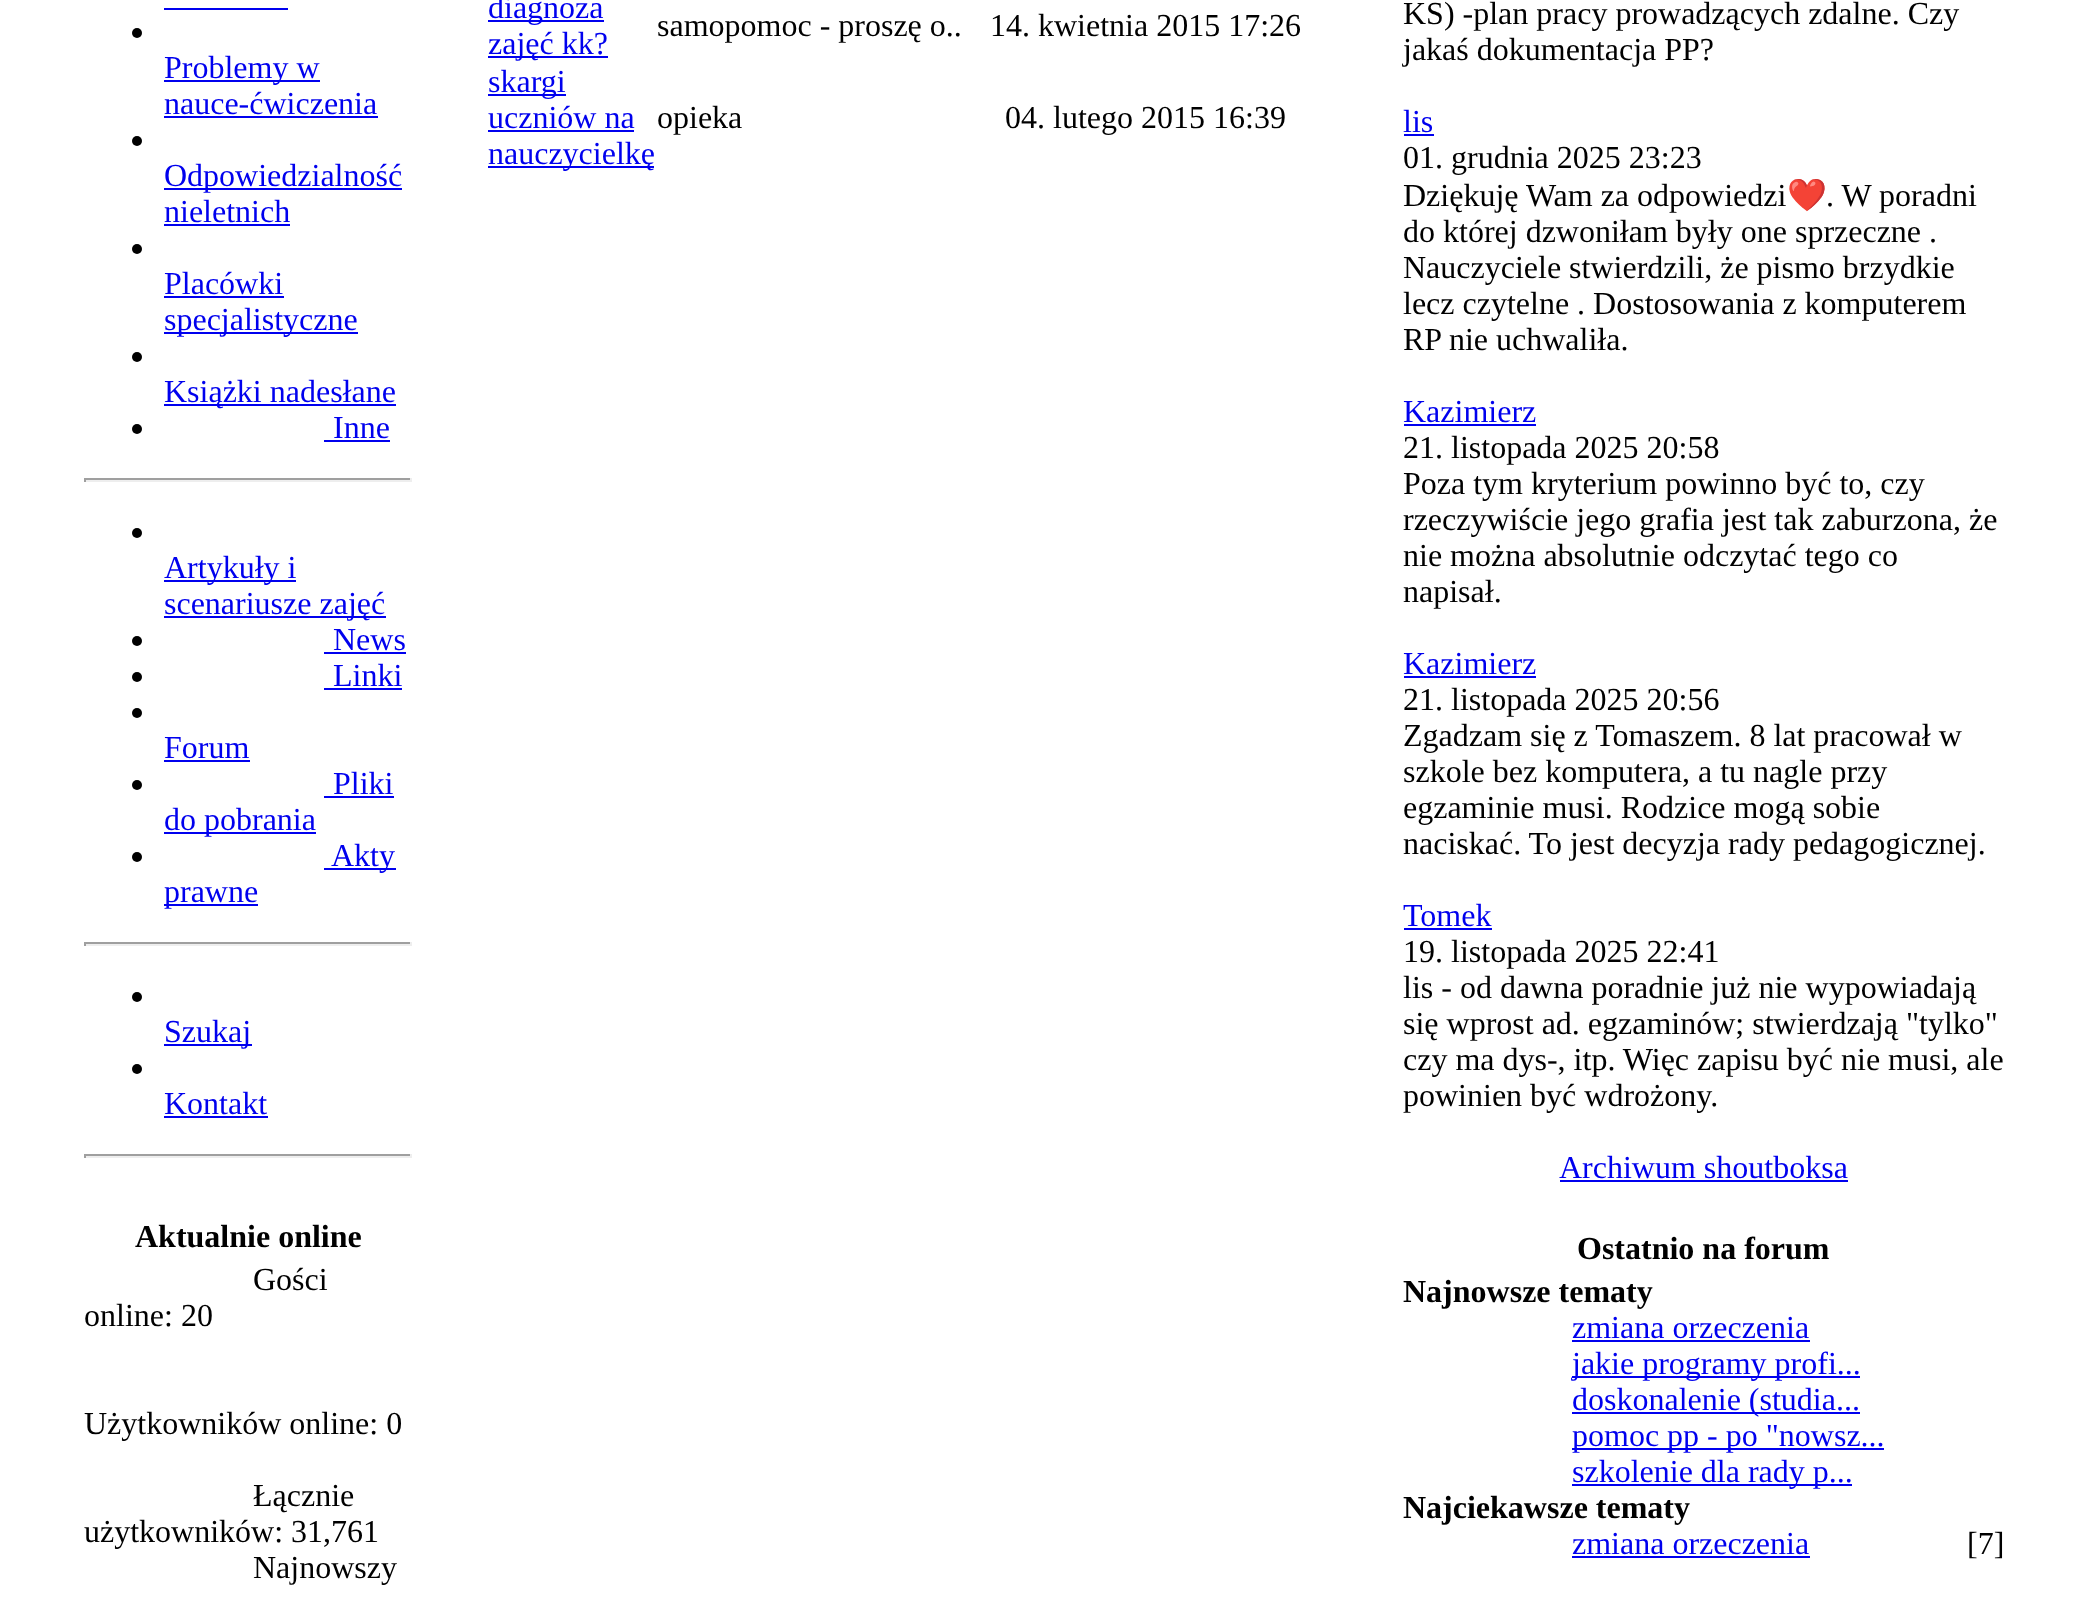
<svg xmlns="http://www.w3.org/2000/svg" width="2089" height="1608">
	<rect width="100%" height="100%" fill="#FFFFFF" />
	<rect x="164" y="8" width="124" height="2" fill="#0000EE" />
	<circle cx="137" cy="33" r="5" fill="#000000" />
	<rect x="164" y="80" width="156" height="2" fill="#0000EE" />
	<g font-family="Liberation Serif" font-size="32" fill="#0000EE">
		<text x="164" y="78">Problemy w</text>
		<text x="164" y="114">nauce-ćwiczenia</text>
	</g>
	<rect x="164" y="116" width="214" height="2" fill="#0000EE" />
	<circle cx="137" cy="141" r="5" fill="#000000" />
	<rect x="164" y="188" width="238" height="2" fill="#0000EE" />
	<g font-family="Liberation Serif" font-size="32" fill="#0000EE">
		<text x="164" y="186">Odpowiedzialność</text>
		<text x="164" y="222">nieletnich</text>
	</g>
	<rect x="164" y="224" width="126" height="2" fill="#0000EE" />
	<circle cx="137" cy="249" r="5" fill="#000000" />
	<text x="164" y="294" font-family="Liberation Serif" font-size="32" fill="#0000EE">Placówki</text>
	<rect x="164" y="296" width="120" height="2" fill="#0000EE" />
	<rect x="164" y="332" width="194" height="2" fill="#0000EE" />
	<text x="164" y="330" font-family="Liberation Serif" font-size="32" fill="#0000EE">specjalistyczne</text>
	<circle cx="137" cy="357" r="5" fill="#000000" />
	<rect x="164" y="404" width="232" height="2" fill="#0000EE" />
	<text x="164" y="402" font-family="Liberation Serif" font-size="32" fill="#0000EE">Książki nadesłane</text>
	<circle cx="137" cy="429" r="5" fill="#000000" />
	<text x="333" y="438" font-family="Liberation Serif" font-size="32" fill="#0000EE">Inne</text>
	<rect x="324" y="440" width="66" height="2" fill="#0000EE" />
	<rect x="84" y="478" width="328" height="2" fill="#9F9F9F" />
	<rect x="410" y="478" width="2" height="4" fill="#EEEEEE" />
	<rect x="84" y="480" width="328" height="2" fill="#EEEEEE" />
	<rect x="84" y="478" width="2" height="4" fill="#9F9F9F" />
	<circle cx="137" cy="533" r="5" fill="#000000" />
	<rect x="164" y="580" width="132" height="2" fill="#0000EE" />
	<text x="164" y="578" font-family="Liberation Serif" font-size="32" fill="#0000EE">Artykuły i</text>
	<rect x="164" y="616" width="222" height="2" fill="#0000EE" />
	<text x="164" y="614" font-family="Liberation Serif" font-size="32" fill="#0000EE">scenariusze zajęć</text>
	<circle cx="137" cy="641" r="5" fill="#000000" />
	<text x="333" y="650" font-family="Liberation Serif" font-size="32" fill="#0000EE">News</text>
	<rect x="324" y="652" width="82" height="2" fill="#0000EE" />
	<circle cx="137" cy="677" r="5" fill="#000000" />
	<text x="333" y="686" font-family="Liberation Serif" font-size="32" fill="#0000EE">Linki</text>
	<rect x="324" y="688" width="78" height="2" fill="#0000EE" />
	<circle cx="137" cy="713" r="5" fill="#000000" />
	<text x="164" y="758" font-family="Liberation Serif" font-size="32" fill="#0000EE">Forum</text>
	<rect x="164" y="760" width="86" height="2" fill="#0000EE" />
	<circle cx="137" cy="785" r="5" fill="#000000" />
	<text x="333" y="794" font-family="Liberation Serif" font-size="32" fill="#0000EE">Pliki</text>
	<rect x="324" y="796" width="70" height="2" fill="#0000EE" />
	<rect x="164" y="832" width="152" height="2" fill="#0000EE" />
	<text x="164" y="830" font-family="Liberation Serif" font-size="32" fill="#0000EE">do pobrania</text>
	<circle cx="137" cy="857" r="5" fill="#000000" />
	<rect x="324" y="868" width="72" height="2" fill="#0000EE" />
	<text x="331" y="866" font-family="Liberation Serif" font-size="32" fill="#0000EE">Akty</text>
	<rect x="164" y="904" width="94" height="2" fill="#0000EE" />
	<text x="164" y="902" font-family="Liberation Serif" font-size="32" fill="#0000EE">prawne</text>
	<rect x="84" y="942" width="328" height="2" fill="#9F9F9F" />
	<rect x="410" y="942" width="2" height="4" fill="#EEEEEE" />
	<rect x="84" y="944" width="328" height="2" fill="#EEEEEE" />
	<rect x="84" y="942" width="2" height="4" fill="#9F9F9F" />
	<circle cx="137" cy="997" r="5" fill="#000000" />
	<rect x="164" y="1044" width="88" height="2" fill="#0000EE" />
	<text x="164" y="1042" font-family="Liberation Serif" font-size="32" fill="#0000EE">Szukaj</text>
	<circle cx="137" cy="1069" r="5" fill="#000000" />
	<text x="164" y="1114" font-family="Liberation Serif" font-size="32" fill="#0000EE">Kontakt</text>
	<rect x="164" y="1116" width="104" height="2" fill="#0000EE" />
	<rect x="84" y="1154" width="328" height="2" fill="#9F9F9F" />
	<rect x="410" y="1154" width="2" height="4" fill="#EEEEEE" />
	<rect x="84" y="1156" width="328" height="2" fill="#EEEEEE" />
	<rect x="84" y="1154" width="2" height="4" fill="#9F9F9F" />
	<text x="135" y="1247" font-family="Liberation Serif" font-size="32" font-weight="700" fill="#000000">Aktualnie online</text>
	<g font-family="Liberation Serif" font-size="32" fill="#000000">
		<text x="253" y="1290">Gości</text>
		<text x="84" y="1326">online: 20</text>
		<text x="84" y="1434">Użytkowników online: 0</text>
		<text x="253" y="1506">Łącznie</text>
		<text x="84" y="1542">użytkowników: 31,761</text>
		<text x="253" y="1578">Najnowszy</text>
	</g>
	<rect x="488" y="20" width="116" height="2" fill="#0000EE" />
	<text x="488" y="18" font-family="Liberation Serif" font-size="32" fill="#0000EE">diagnoza</text>
	<rect x="488" y="56" width="120" height="2" fill="#0000EE" />
	<text x="488" y="54" font-family="Liberation Serif" font-size="32" fill="#0000EE">zajęć kk?</text>
	<g font-family="Liberation Serif" font-size="32" fill="#000000">
		<text x="657" y="36">samopomoc - proszę o..</text>
		<text x="990" y="36">14. kwietnia 2015 17:26</text>
	</g>
	<rect x="488" y="94" width="78" height="2" fill="#0000EE" />
	<g font-family="Liberation Serif" font-size="32" fill="#0000EE">
		<text x="488" y="92">skargi</text>
		<text x="488" y="128">uczniów na</text>
	</g>
	<rect x="488" y="130" width="146" height="2" fill="#0000EE" />
	<rect x="488" y="166" width="166" height="2" fill="#0000EE" />
	<text x="488" y="164" font-family="Liberation Serif" font-size="32" fill="#0000EE">nauczycielkę</text>
	<g font-family="Liberation Serif" font-size="32" fill="#000000">
		<text x="657" y="128">opieka</text>
		<text x="1005" y="128">04. lutego 2015 16:39</text>
		<text x="1403" y="24">KS) -plan pracy prowadzących zdalne. Czy</text>
		<text x="1403" y="60">jakaś dokumentacja PP?</text>
	</g>
	<text x="1403" y="132" font-family="Liberation Serif" font-size="32" fill="#0000EE">lis</text>
	<rect x="1404" y="134" width="30" height="2" fill="#0000EE" />
	<g font-family="Liberation Serif" font-size="32" fill="#000000">
		<text x="1403" y="168">01. grudnia 2025 23:23</text>
		<text x="1403" y="206">Dziękuję Wam za odpowiedzi</text>
	</g>
	<text x="1787" y="206" font-family="Noto Color Emoji" font-size="32" fill="#000000">❤️</text>
	<g font-family="Liberation Serif" font-size="32" fill="#000000">
		<text x="1826" y="206">. W poradni</text>
		<text x="1403" y="242">do której dzwoniłam były one sprzeczne .</text>
		<text x="1403" y="278">Nauczyciele stwierdzili, że pismo brzydkie</text>
		<text x="1403" y="314">lecz czytelne . Dostosowania z komputerem</text>
		<text x="1403" y="350">RP nie uchwaliła.</text>
	</g>
	<text x="1403" y="422" font-family="Liberation Serif" font-size="32" fill="#0000EE">Kazimierz</text>
	<rect x="1404" y="424" width="132" height="2" fill="#0000EE" />
	<g font-family="Liberation Serif" font-size="32" fill="#000000">
		<text x="1403" y="458">21. listopada 2025 20:58</text>
		<text x="1403" y="494">Poza tym kryterium powinno być to, czy</text>
		<text x="1403" y="530">rzeczywiście jego grafia jest tak zaburzona, że</text>
		<text x="1403" y="566">nie można absolutnie odczytać tego co</text>
		<text x="1403" y="602">napisał.</text>
	</g>
	<text x="1403" y="674" font-family="Liberation Serif" font-size="32" fill="#0000EE">Kazimierz</text>
	<rect x="1404" y="676" width="132" height="2" fill="#0000EE" />
	<g font-family="Liberation Serif" font-size="32" fill="#000000">
		<text x="1403" y="710">21. listopada 2025 20:56</text>
		<text x="1403" y="746">Zgadzam się z Tomaszem. 8 lat pracował w</text>
		<text x="1403" y="782">szkole bez komputera, a tu nagle przy</text>
		<text x="1403" y="818">egzaminie musi. Rodzice mogą sobie</text>
		<text x="1403" y="854">naciskać. To jest decyzja rady pedagogicznej.</text>
	</g>
	<text x="1403" y="926" font-family="Liberation Serif" font-size="32" fill="#0000EE">Tomek</text>
	<rect x="1404" y="928" width="88" height="2" fill="#0000EE" />
	<g font-family="Liberation Serif" font-size="32" fill="#000000">
		<text x="1403" y="962">19. listopada 2025 22:41</text>
		<text x="1403" y="998">lis - od dawna poradnie już nie wypowiadają</text>
		<text x="1403" y="1034">się wprost ad. egzaminów; stwierdzają "tylko"</text>
		<text x="1403" y="1070">czy ma dys-, itp. Więc zapisu być nie musi, ale</text>
		<text x="1403" y="1106">powinien być wdrożony.</text>
	</g>
	<text x="1559" y="1178" font-family="Liberation Serif" font-size="32" fill="#0000EE">Archiwum shoutboksa</text>
	<rect x="1560" y="1180" width="288" height="2" fill="#0000EE" />
	<g font-family="Liberation Serif" font-size="32" font-weight="700" fill="#000000">
		<text x="1577" y="1259">Ostatnio na forum</text>
		<text x="1403" y="1302">Najnowsze tematy</text>
	</g>
	<text x="1572" y="1338" font-family="Liberation Serif" font-size="32" fill="#0000EE">zmiana orzeczenia</text>
	<rect x="1572" y="1340" width="238" height="2" fill="#0000EE" />
	<rect x="1572" y="1376" width="288" height="2" fill="#0000EE" />
	<text x="1572" y="1374" font-family="Liberation Serif" font-size="32" fill="#0000EE">jakie programy profi...</text>
	<rect x="1572" y="1412" width="288" height="2" fill="#0000EE" />
	<text x="1572" y="1410" font-family="Liberation Serif" font-size="32" fill="#0000EE">doskonalenie (studia...</text>
	<rect x="1572" y="1448" width="312" height="2" fill="#0000EE" />
	<text x="1572" y="1446" font-family="Liberation Serif" font-size="32" fill="#0000EE">pomoc pp - po "nowsz...</text>
	<rect x="1572" y="1484" width="280" height="2" fill="#0000EE" />
	<text x="1572" y="1482" font-family="Liberation Serif" font-size="32" fill="#0000EE">szkolenie dla rady p...</text>
	<text x="1403" y="1518" font-family="Liberation Serif" font-size="32" font-weight="700" fill="#000000">Najciekawsze tematy</text>
	<text x="1572" y="1554" font-family="Liberation Serif" font-size="32" fill="#0000EE">zmiana orzeczenia</text>
	<rect x="1572" y="1556" width="238" height="2" fill="#0000EE" />
	<text x="1967" y="1554" font-family="Liberation Serif" font-size="32" fill="#000000">[7]</text>
</svg>
